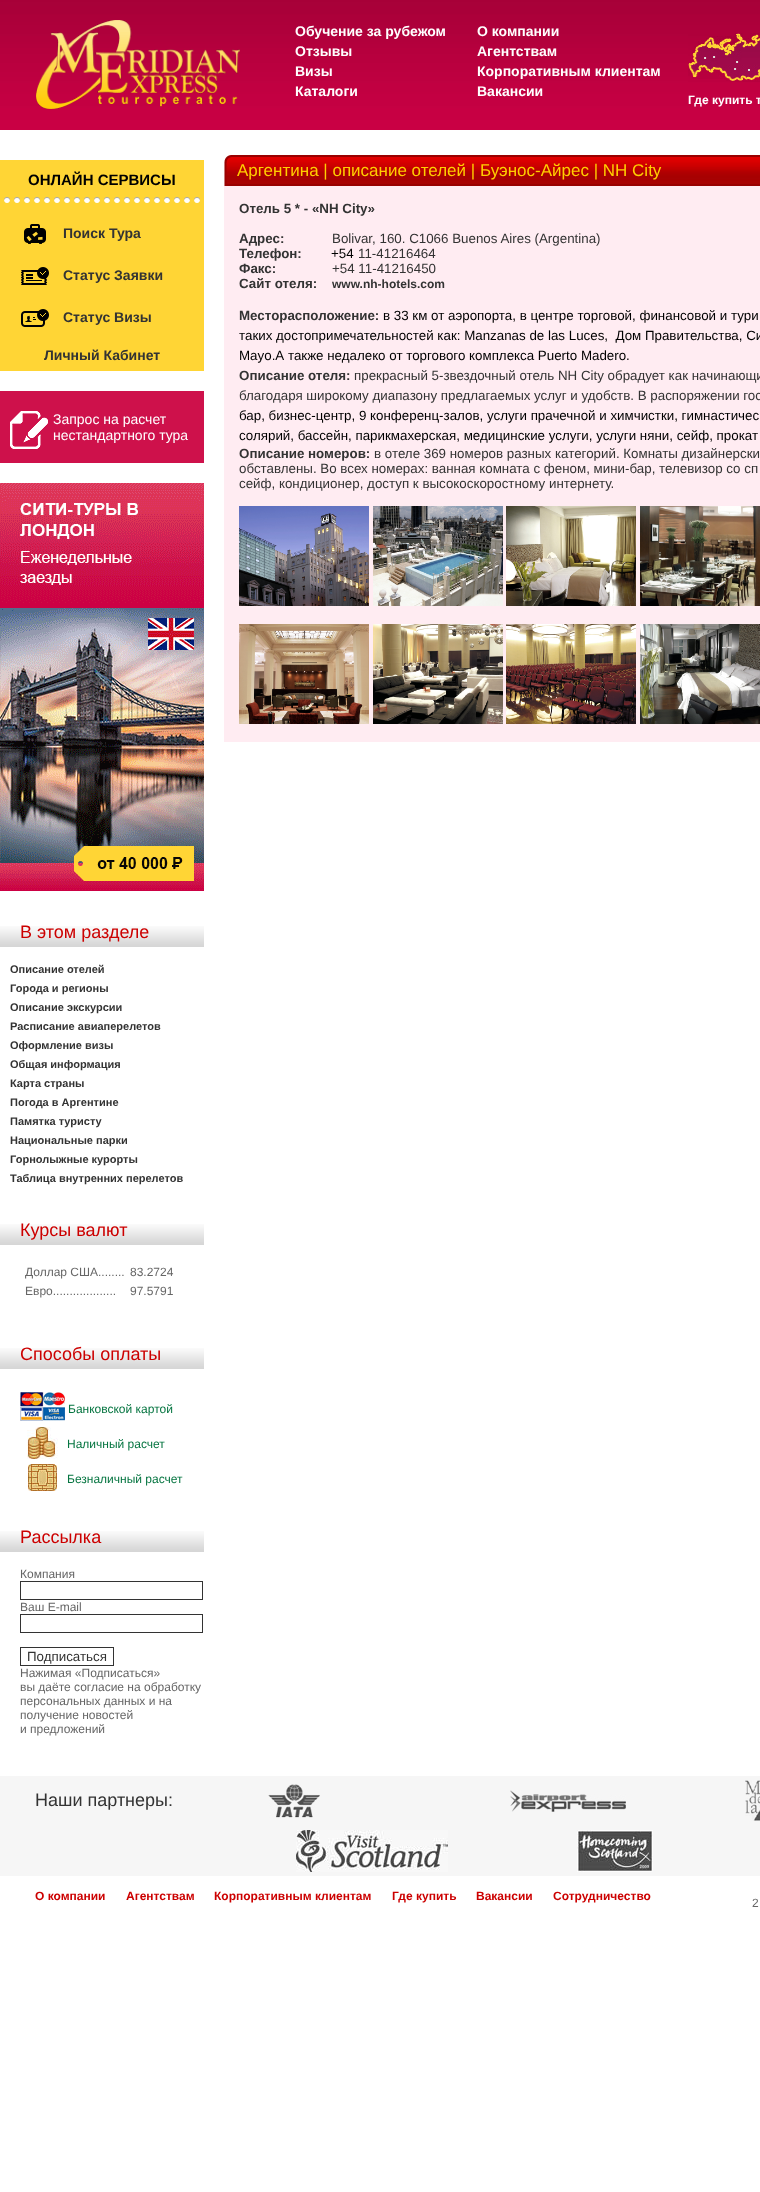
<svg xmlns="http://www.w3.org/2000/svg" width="760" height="2192">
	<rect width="100%" height="100%" fill="#FFFFFF" />
	<image x="0" y="0" width="760" height="130" href="assets/img1.png" />
	<image x="36" y="20" width="204" height="89" href="assets/img2.png" />
	<g font-family="Liberation Sans" font-size="14" font-weight="700" fill="#FFFFFF">
		<text x="295" y="36">Обучение за рубежом</text>
		<text x="295" y="56">Отзывы</text>
		<text x="295" y="76">Визы</text>
		<text x="295" y="96">Каталоги</text>
		<text x="477" y="36">О компании</text>
		<text x="477" y="56">Агентствам</text>
		<text x="477" y="76">Корпоративным клиентам</text>
		<text x="477" y="96">Вакансии</text>
	</g>
	<image x="688" y="33" width="72" height="49" href="assets/img3.png" />
	<text x="688" y="104" font-family="Liberation Sans" font-size="12" font-weight="700" fill="#FFFFFF">Где купить т</text>
	<rect x="0" y="160" width="204" height="211" fill="#FFD535" />
	<image x="4" y="197" width="196" height="6" href="assets/img4.png" />
	<text x="28" y="185" font-family="Liberation Sans" font-size="15" font-weight="700" fill="#000000">ОНЛАЙН СЕРВИСЫ</text>
	<image x="24" y="224" width="22" height="20" href="assets/img5.png" />
	<text x="63" y="238" font-family="Liberation Sans" font-size="14" font-weight="700" fill="#333333">Поиск Тура</text>
	<image x="21" y="267" width="28" height="18" href="assets/img6.png" />
	<text x="63" y="280" font-family="Liberation Sans" font-size="14" font-weight="700" fill="#333333">Статус Заявки</text>
	<image x="21" y="309" width="28" height="18" href="assets/img7.png" />
	<g font-family="Liberation Sans" font-size="14" font-weight="700" fill="#333333">
		<text x="63" y="322">Статус Визы</text>
		<text x="44" y="360">Личный Кабинет</text>
	</g>
	<rect x="0" y="391" width="204" height="72" fill="#CE114B" />
	<image x="10" y="411" width="38" height="38" href="assets/img8.png" />
	<g font-family="Liberation Sans" font-size="14" fill="#FFFFFF">
		<text x="53" y="424">Запрос на расчет</text>
		<text x="53" y="440">нестандартного тура</text>
	</g>
	<image x="0" y="483" width="204" height="408" href="assets/img9.png" />
	<image x="0" y="926" width="204" height="21" href="assets/img10.png" />
	<text x="20" y="938" font-family="Liberation Sans" font-size="18" fill="#CC0000">В этом разделе</text>
	<g font-family="Liberation Sans" font-size="11" font-weight="700" fill="#333333">
		<text x="10" y="973">Описание отелей</text>
		<text x="10" y="992">Города и регионы</text>
		<text x="10" y="1011">Описание экскурсии</text>
		<text x="10" y="1030">Расписание авиаперелетов</text>
		<text x="10" y="1049">Оформление визы</text>
		<text x="10" y="1068">Общая информация</text>
		<text x="10" y="1087">Карта страны</text>
		<text x="10" y="1106">Погода в Аргентине</text>
		<text x="10" y="1125">Памятка туристу</text>
		<text x="10" y="1144">Национальные парки</text>
		<text x="10" y="1163">Горнолыжные курорты</text>
		<text x="10" y="1182">Таблица внутренних перелетов</text>
	</g>
	<image x="0" y="1224" width="204" height="21" href="assets/img10.png" />
	<text x="20" y="1236" font-family="Liberation Sans" font-size="18" fill="#CC0000">Курсы валют</text>
	<g font-family="Liberation Sans" font-size="12" fill="#666666">
		<text x="25" y="1276">Доллар США........</text>
		<text x="130" y="1276">83.2724</text>
		<text x="25" y="1295">Евро...................</text>
		<text x="130" y="1295">97.5791</text>
	</g>
	<image x="0" y="1348" width="204" height="21" href="assets/img10.png" />
	<text x="20" y="1360" font-family="Liberation Sans" font-size="18" fill="#CC0000">Способы оплаты</text>
	<image x="20" y="1392" width="45" height="29" href="assets/img11.png" />
	<text x="68" y="1413" font-family="Liberation Sans" font-size="12" fill="#067541">Банковской картой</text>
	<image x="27" y="1427" width="31" height="32" href="assets/img12.png" />
	<text x="67" y="1448" font-family="Liberation Sans" font-size="12" fill="#067541">Наличный расчет</text>
	<image x="28" y="1464" width="29" height="27" href="assets/img13.png" />
	<text x="67" y="1483" font-family="Liberation Sans" font-size="12" fill="#067541">Безналичный расчет</text>
	<image x="0" y="1531" width="204" height="21" href="assets/img10.png" />
	<text x="20" y="1543" font-family="Liberation Sans" font-size="18" fill="#CC0000">Рассылка</text>
	<text x="20" y="1578" font-family="Liberation Sans" font-size="12" fill="#666666">Компания</text>
	<rect x="20.5" y="1581.5" width="182" height="18" fill="none" stroke="#333333" />
	<text x="20" y="1611" font-family="Liberation Sans" font-size="12" fill="#666666">Ваш E-mail</text>
	<rect x="20.5" y="1614.5" width="182" height="18" fill="none" stroke="#333333" />
	<rect x="20.5" y="1647.5" width="93" height="18" fill="none" stroke="#333333" />
	<text x="27" y="1661" font-family="Liberation Sans" font-size="13.35" fill="#333333">Подписаться</text>
	<g font-family="Liberation Sans" font-size="12" fill="#666666">
		<text x="20" y="1677">Нажимая «Подписаться»</text>
		<text x="20" y="1691">вы даёте согласие на обработку</text>
		<text x="20" y="1705">персональных данных и на</text>
		<text x="20" y="1719">получение новостей</text>
		<text x="20" y="1733">и предложений</text>
	</g>
	<image x="232" y="155" width="528" height="31" href="assets/img14.png" />
	<image x="224" y="155" width="8" height="31" href="assets/img15.png" />
	<text x="237" y="176" font-family="Liberation Sans" font-size="17" fill="#FFCE00">Аргентина | описание отелей | Буэноc-Айрес | NH City</text>
	<rect x="224" y="186" width="536" height="556" fill="#FFECF2" />
	<g font-family="Liberation Sans" font-size="13.35" font-weight="700" fill="#333333">
		<text x="239" y="213">Отель 5 * - «NH City»</text>
		<text x="239" y="243">Адрес:</text>
	</g>
	<text x="332" y="243" font-family="Liberation Sans" font-size="13.35" fill="#333333">Bolivar, 160. C1066 Buenos Aires (Argentina)</text>
	<text x="239" y="258" font-family="Liberation Sans" font-size="13.35" font-weight="700" fill="#333333">Телефон:</text>
	<text x="331" y="258" font-family="Liberation Sans" font-size="13.35" fill="#000000">+54</text>
	<text x="358" y="258" font-family="Liberation Sans" font-size="13.35" fill="#333333">11-41216464</text>
	<text x="239" y="273" font-family="Liberation Sans" font-size="13.35" font-weight="700" fill="#333333">Факс:</text>
	<text x="332" y="273" font-family="Liberation Sans" font-size="13.35" fill="#333333">+54 11-41216450</text>
	<text x="239" y="288" font-family="Liberation Sans" font-size="13.35" font-weight="700" fill="#333333">Сайт отеля:</text>
	<text x="332" y="288" font-family="Liberation Sans" font-size="12" font-weight="700" fill="#333333">www.nh-hotels.com</text>
	<text x="239" y="320" font-family="Liberation Sans" font-size="13.35" font-weight="700" fill="#333333">Месторасположение:</text>
	<g font-family="Liberation Sans" font-size="13.35" fill="#000000">
		<text x="383" y="320">в 33 км от аэропорта, в центре торговой, финансовой и тури</text>
		<text x="239" y="340" xml:space="preserve">таких достопримечательностей как: Manzanas de las Luces,  Дом Правительства, Си</text>
		<text x="239" y="360">Mayo.А также недалеко от торгового комплекса Puerto Madero.</text>
	</g>
	<text x="239" y="380" font-family="Liberation Sans" font-size="13.35" font-weight="700" fill="#333333">Описание отеля:</text>
	<g font-family="Liberation Sans" font-size="13.35" fill="#333333">
		<text x="354" y="380">прекрасный 5-звездочный отель NH City обрадует как начинающи</text>
		<text x="239" y="400">благодаря широкому диапазону предлагаемых услуг и удобств. В распоряжении гос</text>
	</g>
	<g font-family="Liberation Sans" font-size="13.35" fill="#000000">
		<text x="239" y="420">бар, бизнес-центр, 9 конференц-залов, услуги прачечной и химчистки, гимнастичес</text>
		<text x="239" y="440">солярий, бассейн, парикмахерская, медицинские услуги, услуги няни, сейф, прокат</text>
	</g>
	<text x="239" y="458" font-family="Liberation Sans" font-size="13.35" font-weight="700" fill="#333333">Описание номеров:</text>
	<g font-family="Liberation Sans" font-size="13.35" fill="#333333">
		<text x="374" y="458">в отеле 369 номеров разных категорий. Комнаты дизайнерски</text>
		<text x="239" y="473">обставлены. Во всех номерах: ванная комната с феном, мини-бар, телевизор со сп</text>
		<text x="239" y="488">сейф, кондиционер, доступ к высокоскоростному интернету.</text>
	</g>
	<image x="239" y="506" width="130" height="100" href="assets/img16.png" />
	<image x="373" y="506" width="130" height="100" href="assets/img17.png" />
	<image x="506" y="506" width="130" height="100" href="assets/img18.png" />
	<image x="640" y="506" width="120" height="100" href="assets/img19.png" />
	<image x="239" y="624" width="130" height="100" href="assets/img20.png" />
	<image x="373" y="624" width="130" height="100" href="assets/img21.png" />
	<image x="506" y="624" width="130" height="100" href="assets/img22.png" />
	<image x="640" y="624" width="120" height="100" href="assets/img23.png" />
	<rect x="0" y="1776" width="760" height="100" fill="#F6F6F6" />
	<text x="35" y="1806" font-family="Liberation Sans" font-size="18" fill="#333333">Наши партнеры:</text>
	<image x="268" y="1784" width="52" height="34" href="assets/img24.png" />
	<image x="510" y="1790" width="116" height="22" href="assets/img25.png" />
	<image x="745" y="1780" width="15" height="41" href="assets/img26.png" />
	<image x="296" y="1830" width="152" height="42" href="assets/img27.png" />
	<image x="577" y="1830" width="76" height="42" href="assets/img28.png" />
	<g font-family="Liberation Sans" font-size="12" font-weight="700" fill="#CC0000">
		<text x="35" y="1900">О компании</text>
		<text x="126" y="1900">Агентствам</text>
		<text x="214" y="1900">Корпоративным клиентам</text>
		<text x="392" y="1900">Где купить</text>
		<text x="476" y="1900">Вакансии</text>
		<text x="553" y="1900">Сотрудничество</text>
	</g>
	<text x="752" y="1907" font-family="Liberation Sans" font-size="12" fill="#666666">2</text>
</svg>
